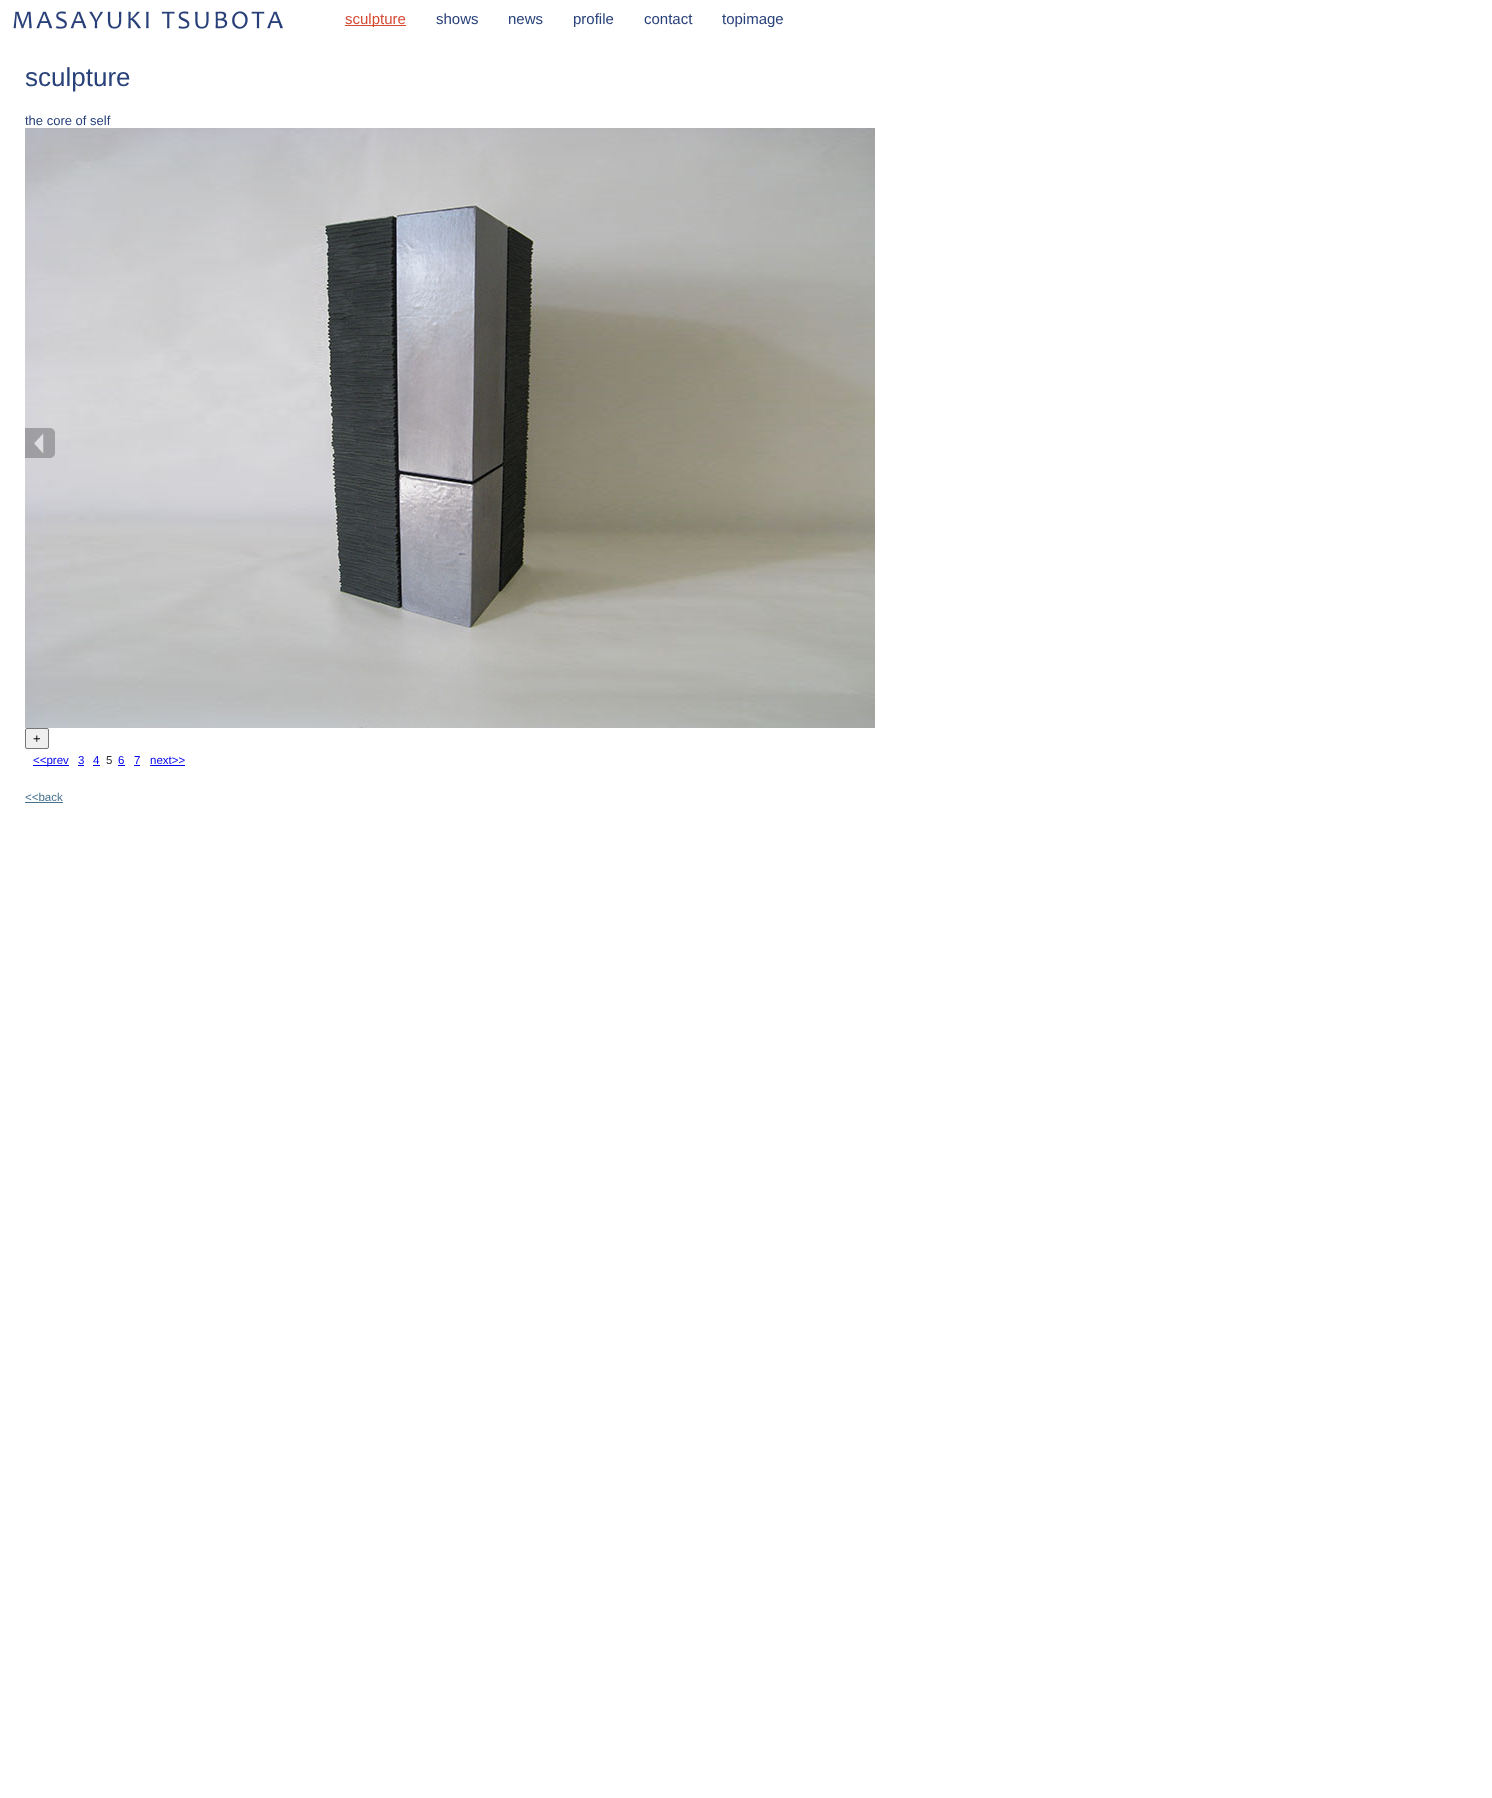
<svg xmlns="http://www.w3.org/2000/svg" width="1492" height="1798">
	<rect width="100%" height="100%" fill="#FFFFFF" />
	<image x="13" y="11" width="270" height="18" href="assets/img1.png" />
	<rect x="345" y="25" width="61" height="1" fill="#D54A32" />
	<text x="345" y="24" font-family="Liberation Sans" font-size="15" fill="#D54A32">sculpture</text>
	<g font-family="Liberation Sans" font-size="15" fill="#284179">
		<text x="436" y="24">shows</text>
		<text x="508" y="24">news</text>
		<text x="573" y="24">profile</text>
		<text x="644" y="24">contact</text>
		<text x="722" y="24">topimage</text>
	</g>
	<text x="25" y="86" font-family="Liberation Sans" font-size="26" fill="#284179">sculpture</text>
	<text x="25" y="125" font-family="Liberation Sans" font-size="13" fill="#284179">the core of self</text>
	<image x="25" y="128" width="850" height="600" href="assets/img2.png" />
	<image x="25" y="428" width="30" height="30" href="assets/img3.png" />
	<rect x="25.5" y="728.5" width="23" height="20" rx="1.5" fill="#EFEFEF" stroke="#767676" />
	<text x="33" y="743" font-family="Liberation Sans" font-size="13" fill="#000000">+</text>
	<rect x="33" y="765" width="36" height="1" fill="#0000EE" />
	<g font-family="Liberation Sans" font-size="11.5" fill="#0000EE">
		<text x="33" y="764">&lt;&lt;prev</text>
		<text x="78" y="764">3</text>
	</g>
	<rect x="78" y="765" width="6" height="1" fill="#0000EE" />
	<text x="93" y="764" font-family="Liberation Sans" font-size="11.5" fill="#0000EE">4</text>
	<rect x="93" y="765" width="7" height="1" fill="#0000EE" />
	<text x="106" y="764" font-family="Liberation Sans" font-size="11.5" fill="#333333">5</text>
	<text x="118" y="764" font-family="Liberation Sans" font-size="11.5" fill="#0000EE">6</text>
	<rect x="118" y="765" width="7" height="1" fill="#0000EE" />
	<text x="134" y="764" font-family="Liberation Sans" font-size="11.5" fill="#0000EE">7</text>
	<rect x="134" y="765" width="6" height="1" fill="#0000EE" />
	<text x="150" y="764" font-family="Liberation Sans" font-size="11.5" fill="#0000EE">next&gt;&gt;</text>
	<rect x="150" y="765" width="35" height="1" fill="#0000EE" />
	<text x="25" y="801" font-family="Liberation Sans" font-size="11.5" fill="#45718C">&lt;&lt;back</text>
	<rect x="25" y="802" width="38" height="1" fill="#45718C" />
</svg>
